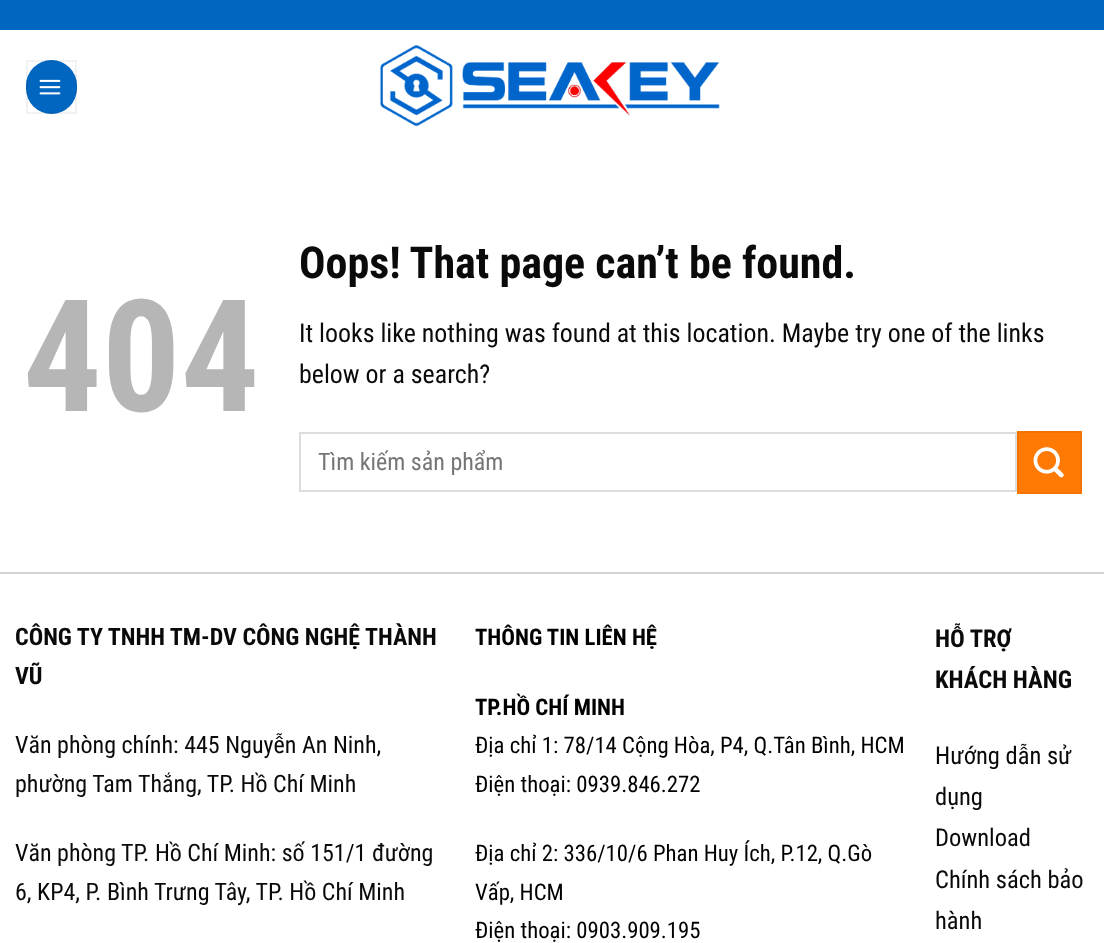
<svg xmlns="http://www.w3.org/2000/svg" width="1104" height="943">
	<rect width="100%" height="100%" fill="#FFFFFF" />
	<rect x="0" y="0" width="1104" height="30" fill="#0066BF" />
	<rect x="26" y="60" width="51" height="54" rx="25.5" fill="#0066BF" />
	<rect x="27" y="61" width="49" height="52" fill="none" stroke="#000000" stroke-opacity="0.05" stroke-width="2" />
	<image x="39" y="79" width="22" height="16" href="assets/img1.png" />
	<image x="380" y="45" width="340" height="82" href="assets/img2.png" />
	<text x="23" y="411" font-family="Roboto Condensed" font-size="156" font-weight="700" fill="#B6B6B6">404</text>
	<text x="299" y="278" font-family="Roboto Condensed" font-size="44" font-weight="700" fill="#0A0A0A">Oops! That page can’t be found.</text>
	<g font-family="Roboto Condensed" font-size="25.9" fill="#0A0A0A">
		<text x="299" y="342">It looks like nothing was found at this location. Maybe try one of the links</text>
		<text x="299" y="383">below or a search?</text>
	</g>
	<rect x="300" y="433" width="716" height="58" fill="none" stroke="#DDDDDD" stroke-width="2" />
	<text x="318" y="470" font-family="Roboto Condensed" font-size="24" fill="#757575">Tìm kiếm sản phẩm</text>
	<rect x="1018" y="432" width="63" height="61" fill="#FE7A05" stroke="#F17405" stroke-width="2" />
	<image x="1033" y="447" width="31" height="31" href="assets/img3.png" />
	<rect x="0" y="572" width="1104" height="2" fill="#D2D2D2" />
	<g font-family="Roboto Condensed" font-size="24" font-weight="700" fill="#0A0A0A">
		<text x="15" y="645">CÔNG TY TNHH TM-DV CÔNG NGHỆ THÀNH</text>
		<text x="15" y="684">VŨ</text>
	</g>
	<g font-family="Roboto Condensed" font-size="24" fill="#0A0A0A">
		<text x="15" y="753">Văn phòng chính: 445 Nguyễn An Ninh,</text>
		<text x="15" y="792">phường Tam Thắng, TP. Hồ Chí Minh</text>
		<text x="15" y="861">Văn phòng TP. Hồ Chí Minh: số 151/1 đường</text>
		<text x="15" y="900">6, KP4, P. Bình Trưng Tây, TP. Hồ Chí Minh</text>
	</g>
	<g font-family="Roboto Condensed" font-size="22.75" font-weight="700" fill="#000000">
		<text x="475" y="645">THÔNG TIN LIÊN HỆ</text>
		<text x="475" y="715">TP.HỒ CHÍ MINH</text>
	</g>
	<g font-family="Roboto Condensed" font-size="22.75" fill="#000000">
		<text x="475" y="753">Địa chỉ 1: 78/14 Cộng Hòa, P4, Q.Tân Bình, HCM</text>
		<text x="475" y="792">Điện thoại: 0939.846.272</text>
		<text x="475" y="861">Địa chỉ 2: 336/10/6 Phan Huy Ích, P.12, Q.Gò</text>
		<text x="475" y="900">Vấp, HCM</text>
		<text x="475" y="938">Điện thoại: 0903.909.195</text>
	</g>
	<g font-family="Roboto Condensed" font-size="24.5" font-weight="700" fill="#0A0A0A">
		<text x="935" y="647">HỖ TRỢ</text>
		<text x="935" y="688">KHÁCH HÀNG</text>
	</g>
	<g font-family="Roboto Condensed" font-size="24.5" fill="#0A0A0A">
		<text x="935" y="764">Hướng dẫn sử</text>
		<text x="935" y="805">dụng</text>
		<text x="935" y="846">Download</text>
		<text x="935" y="888">Chính sách bảo</text>
		<text x="935" y="929">hành</text>
	</g>
</svg>
